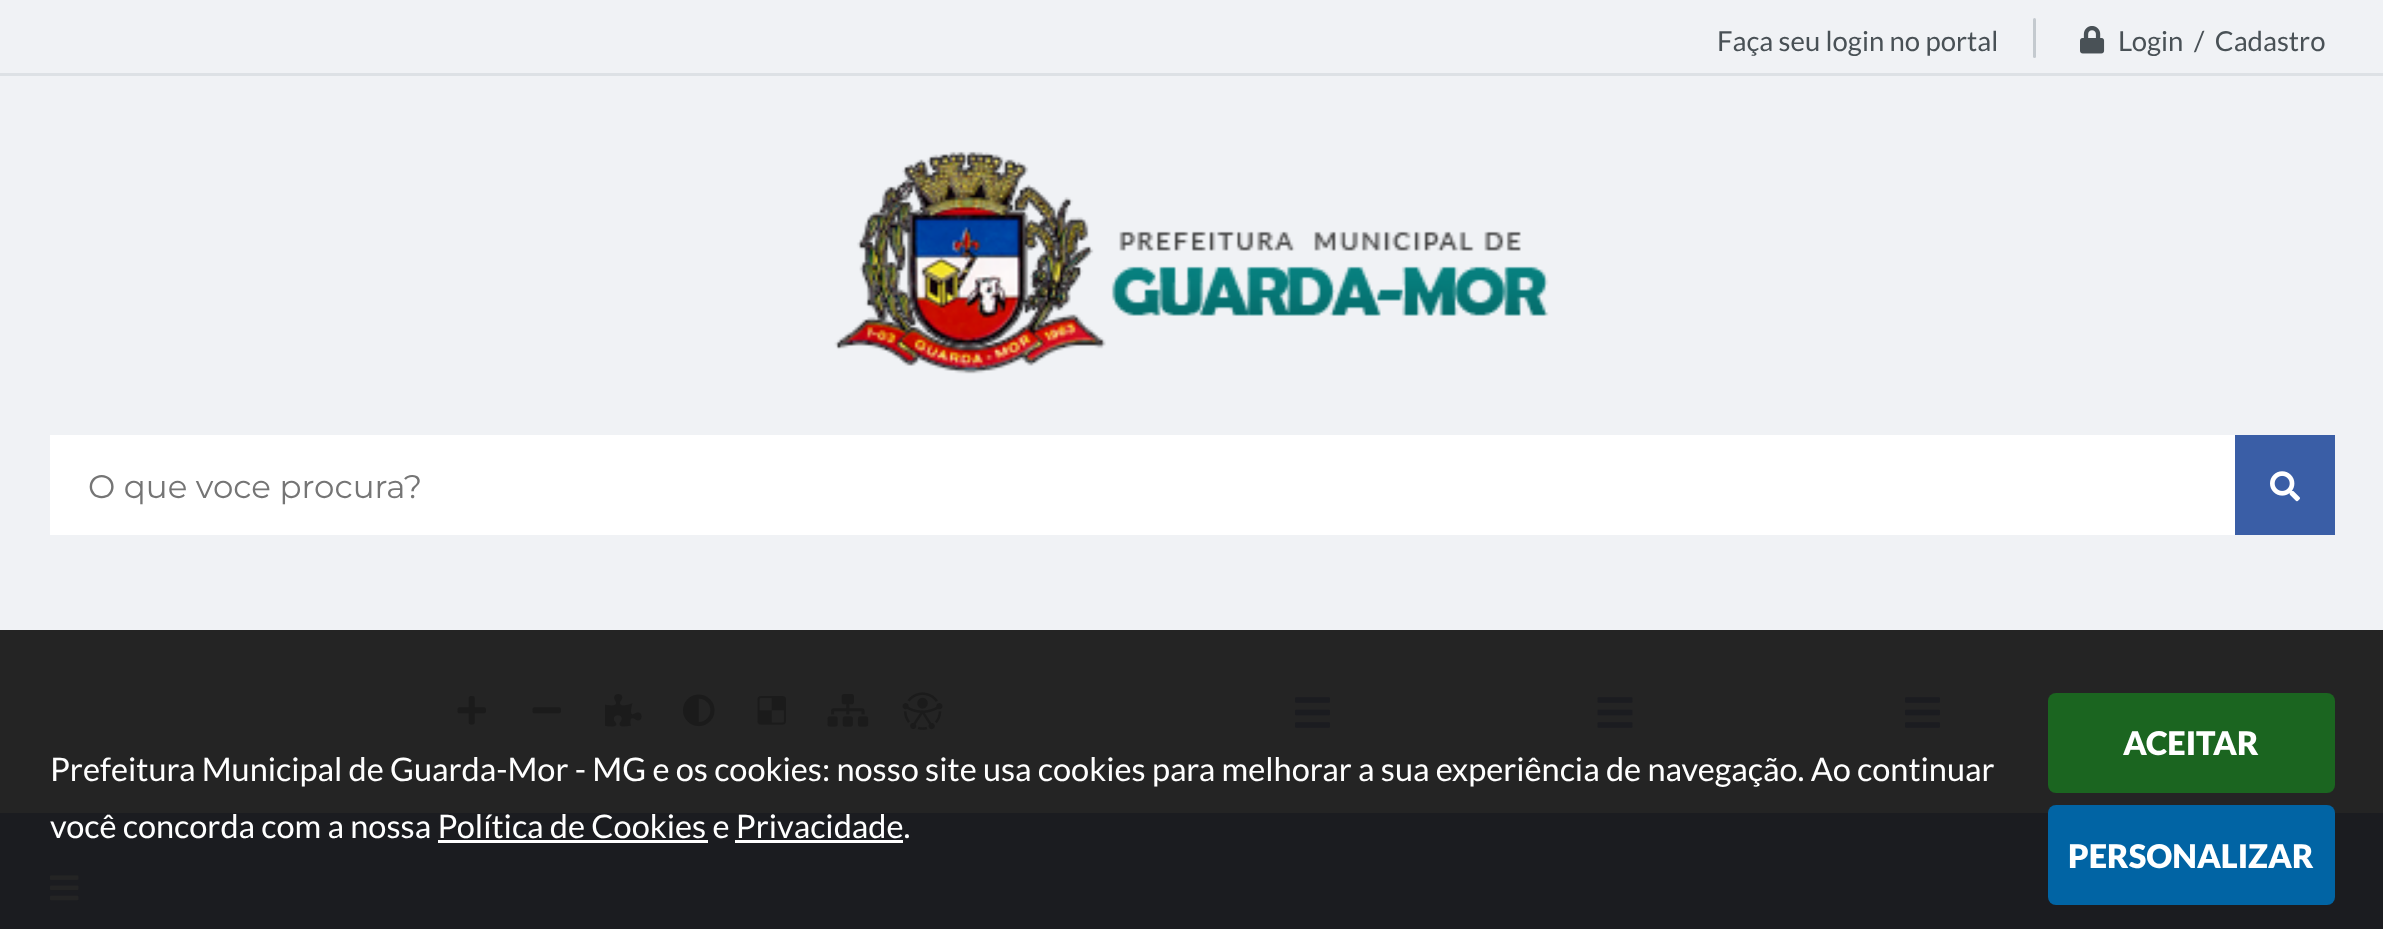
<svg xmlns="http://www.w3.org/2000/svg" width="2383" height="929">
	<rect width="100%" height="100%" fill="#F0F2F5" />
	<rect x="0" y="73" width="2383" height="3" fill="#DDE1E5" />
	<text x="1717" y="51" font-family="Lato" font-size="27.5" fill="#495156">Faça seu login no portal</text>
	<rect x="2033" y="18" width="3" height="40" rx="1.5" fill="#C4CACF" />
	<image x="2080" y="26" width="25" height="28" href="assets/img1.png" />
	<text x="2118" y="51" font-family="Lato" font-size="27.5" fill="#495156" xml:space="preserve">Login  /  Cadastro</text>
	<rect x="0" y="630" width="2383" height="183" fill="#242424" />
	<image x="834" y="151" width="715" height="223" href="assets/img2.png" />
	<rect x="50" y="435" width="2185" height="100" fill="#FFFFFF" />
	<text x="88" y="498" font-family="Montserrat" font-size="32.5" fill="#757575">O que voce procura?</text>
	<rect x="2235" y="435" width="100" height="100" fill="#3A5EA6" />
	<image x="2270" y="471" width="30" height="31" href="assets/img3.png" />
	<image x="457" y="696" width="29" height="29" href="assets/img4.png" />
	<image x="532" y="707" width="29" height="7" href="assets/img5.png" />
	<image x="605" y="694" width="37" height="33" href="assets/img6.png" />
	<image x="683" y="694" width="32" height="33" href="assets/img7.png" />
	<image x="757" y="696" width="29" height="29" href="assets/img8.png" />
	<image x="827" y="694" width="42" height="33" href="assets/img9.png" />
	<image x="902" y="692" width="41" height="38" href="assets/img10.png" />
	<image x="1295" y="697" width="35" height="31" href="assets/img11.png" />
	<image x="1597" y="697" width="36" height="31" href="assets/img12.png" />
	<image x="1905" y="697" width="35" height="31" href="assets/img11.png" />
	<rect x="0" y="813" width="2383" height="116" fill="#1B1C20" />
	<image x="50" y="875" width="29" height="26" href="assets/img13.png" />
	<g font-family="Lato" font-size="32.5" fill="#FFFFFF">
		<text x="50" y="781">Prefeitura Municipal de Guarda-Mor - MG e os cookies: nosso site usa cookies para melhorar a sua experiência de navegação. Ao continuar</text>
		<text x="50" y="838">você concorda com a nossa Política de Cookies e Privacidade.</text>
	</g>
	<rect x="438" y="840" width="270" height="3" fill="#FFFFFF" />
	<rect x="735" y="840" width="168" height="3" fill="#FFFFFF" />
	<rect x="2048" y="693" width="287" height="100" rx="8" fill="#1B6520" />
	<text x="2123" y="755" font-family="Lato" font-size="32.5" font-weight="900" fill="#FFFFFF">ACEITAR</text>
	<rect x="2048" y="805" width="287" height="100" rx="8" fill="#0164A4" />
	<text x="2068" y="868" font-family="Lato" font-size="32.5" font-weight="900" fill="#FFFFFF">PERSONALIZAR</text>
</svg>
